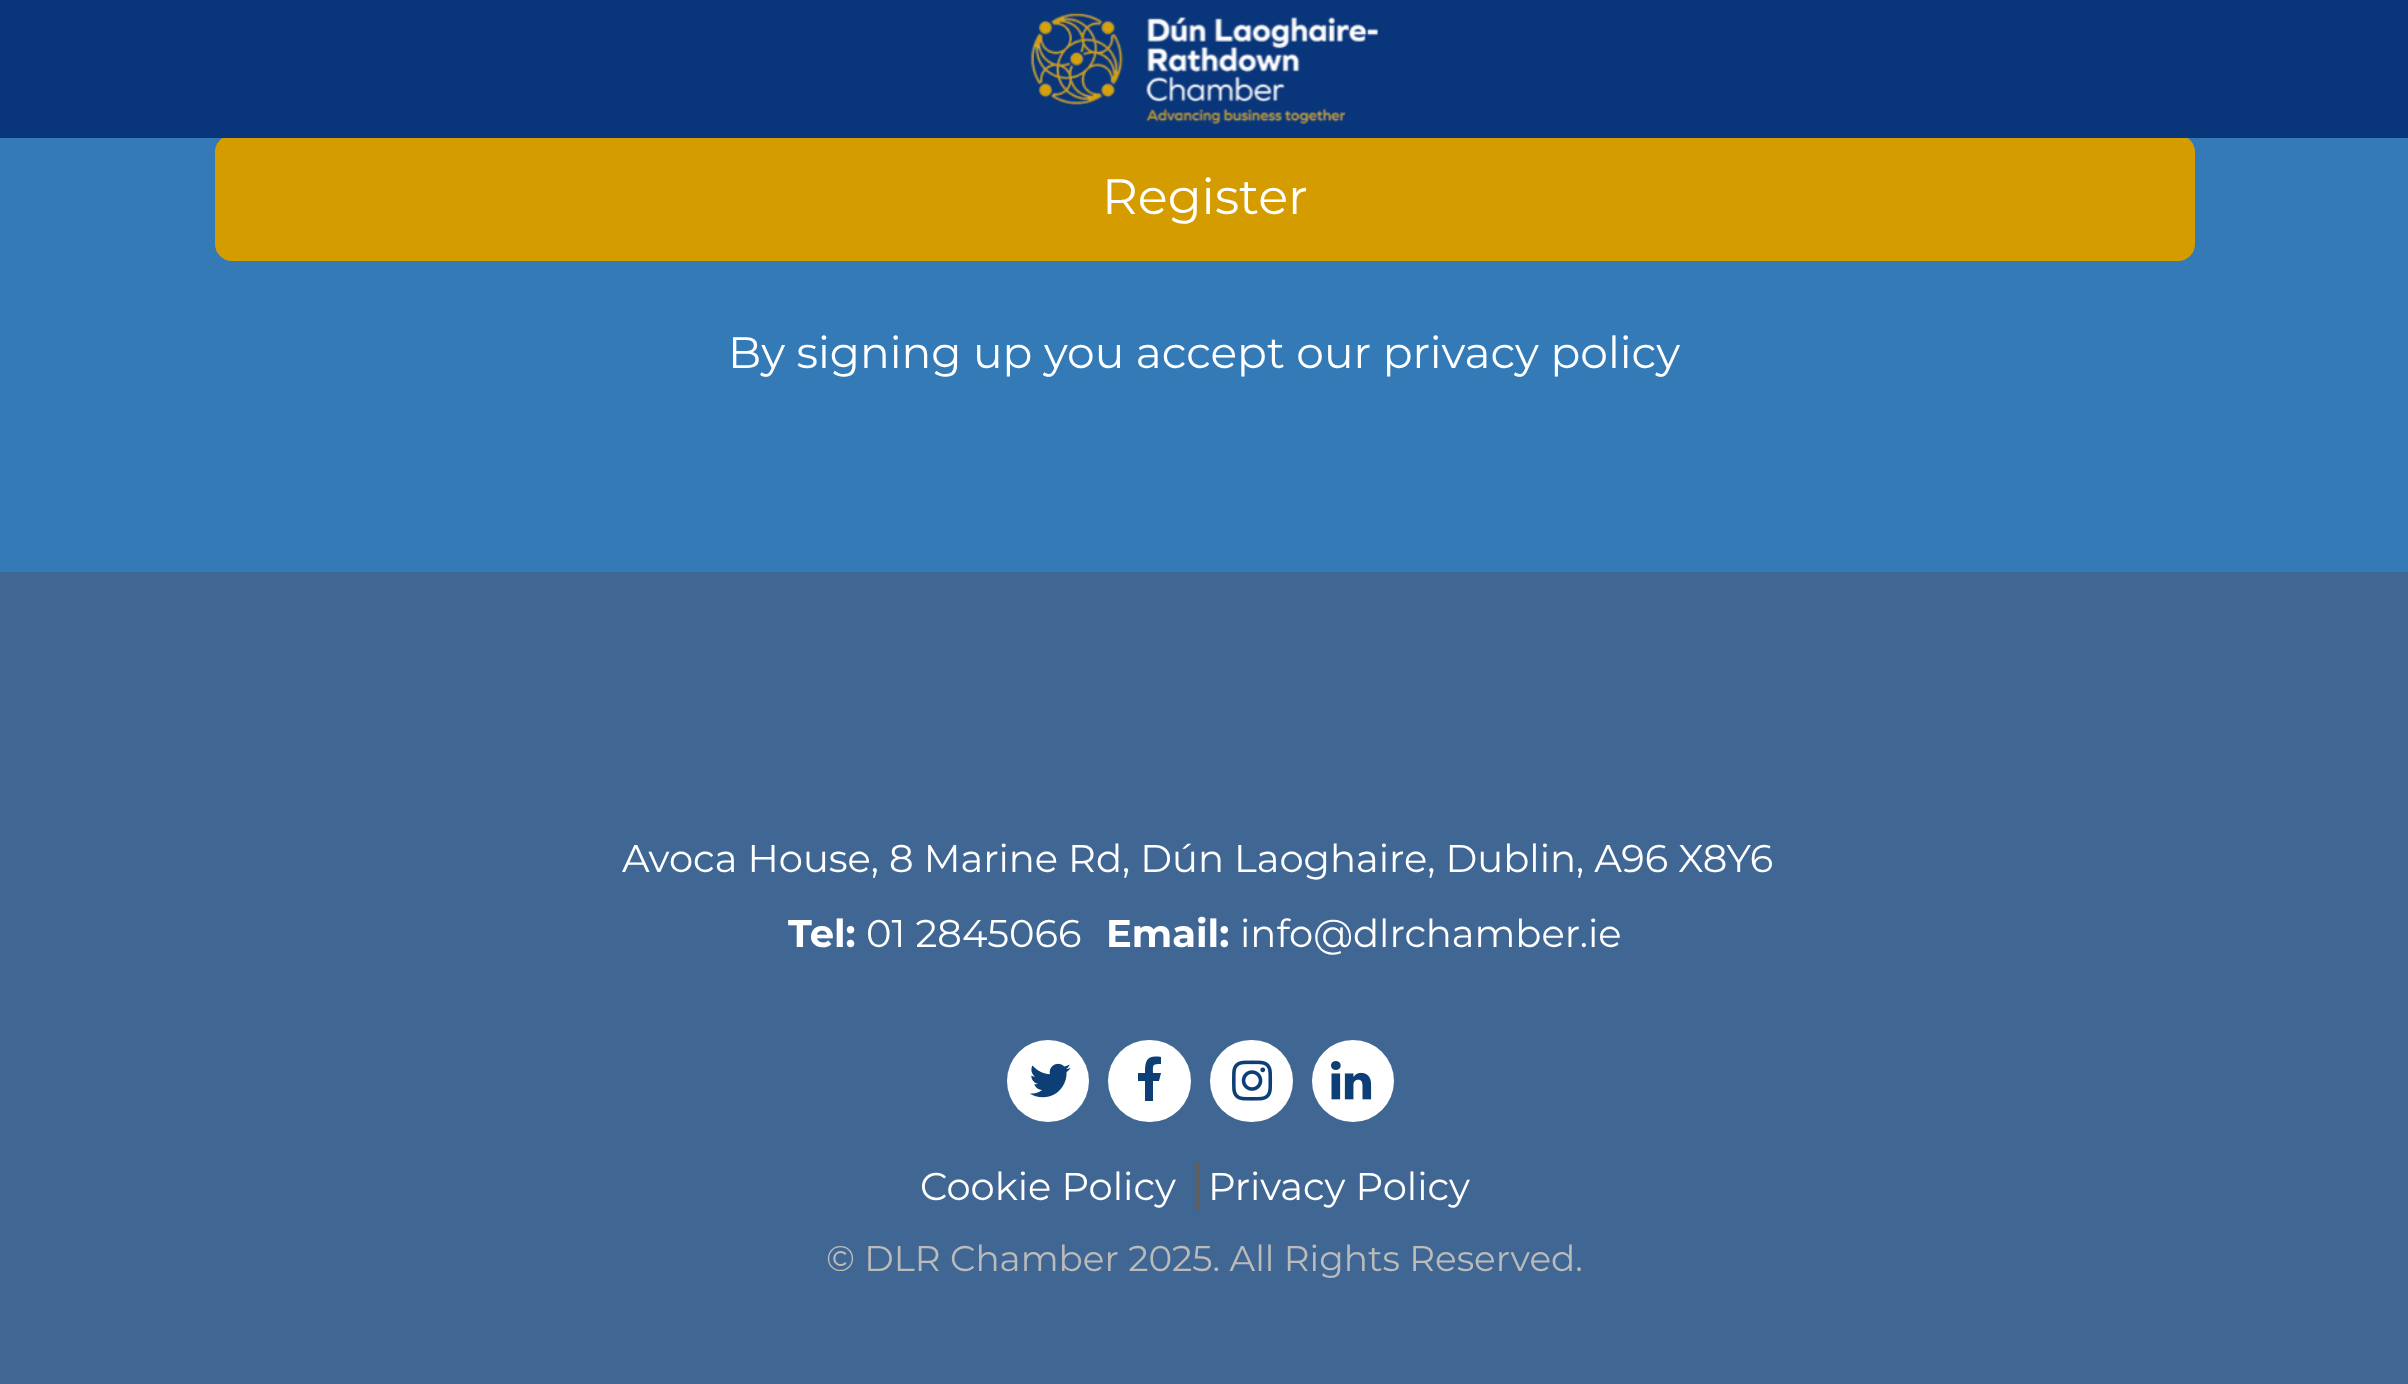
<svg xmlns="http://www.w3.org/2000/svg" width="2408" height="1384">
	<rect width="100%" height="100%" fill="#337AB7" />
	<rect x="216.5" y="136.5" width="1977" height="123" rx="15.5" fill="#D59C00" stroke="#D59C00" stroke-width="3" />
	<rect x="0" y="0" width="2408" height="138" fill="#09357A" />
	<image x="1030" y="12" width="348" height="113" href="assets/img1.png" />
	<text x="1102" y="214" font-family="Montserrat" font-size="49.5" fill="#FFFFFF">Register</text>
	<text x="728" y="368" font-family="Montserrat" font-size="44" fill="#FFFFFF">By signing up you accept our privacy policy</text>
	<rect x="0" y="572" width="2408" height="812" fill="#406794" />
	<text x="622" y="872" font-family="Montserrat" font-size="38.5" fill="#FFFFFF">Avoca House, 8 Marine Rd, Dún Laoghaire, Dublin, A96 X8Y6</text>
	<text x="788" y="947" font-family="Montserrat" font-size="38.5" font-weight="700" fill="#FFFFFF">Tel:</text>
	<text x="866" y="947" font-family="Montserrat" font-size="38.5" fill="#FFFFFF">01 2845066</text>
	<text x="1106" y="947" font-family="Montserrat" font-size="38.5" font-weight="700" fill="#FFFFFF">Email:</text>
	<text x="1240" y="947" font-family="Montserrat" font-size="38.5" fill="#FFFFFF">info@dlrchamber.ie</text>
	<circle cx="1048" cy="1081" r="41" fill="#FFFFFF" />
	<image x="1029" y="1063" width="42" height="35" href="assets/img2.png" />
	<rect x="1108" y="1040" width="83" height="82" rx="41" fill="#FFFFFF" />
	<path d="M1161 1057V1064C1152 1064 1153 1065 1153 1073H1161L1159 1081H1153V1101H1145V1081H1138V1073H1145C1145 1060 1147 1055 1161 1057Z" fill="#0D3E76" />
	<rect x="1210" y="1040" width="83" height="82" rx="41" fill="#FFFFFF" />
	<image x="1232" y="1060" width="41" height="41" href="assets/img3.png" />
	<circle cx="1353" cy="1081" r="41" fill="#FFFFFF" />
	<image x="1331" y="1061" width="41" height="39" href="assets/img4.png" />
	<text x="920" y="1200" font-family="Montserrat" font-size="38.5" fill="#FFFFFF">Cookie Policy</text>
	<rect x="1196" y="1161" width="3" height="49" fill="#5F5F5F" />
	<text x="1208" y="1200" font-family="Montserrat" font-size="38.5" fill="#FFFFFF">Privacy Policy</text>
	<text x="826" y="1271" font-family="Montserrat" font-size="35.75" fill="#BBBBBB">© DLR Chamber 2025. All Rights Reserved.</text>
</svg>
